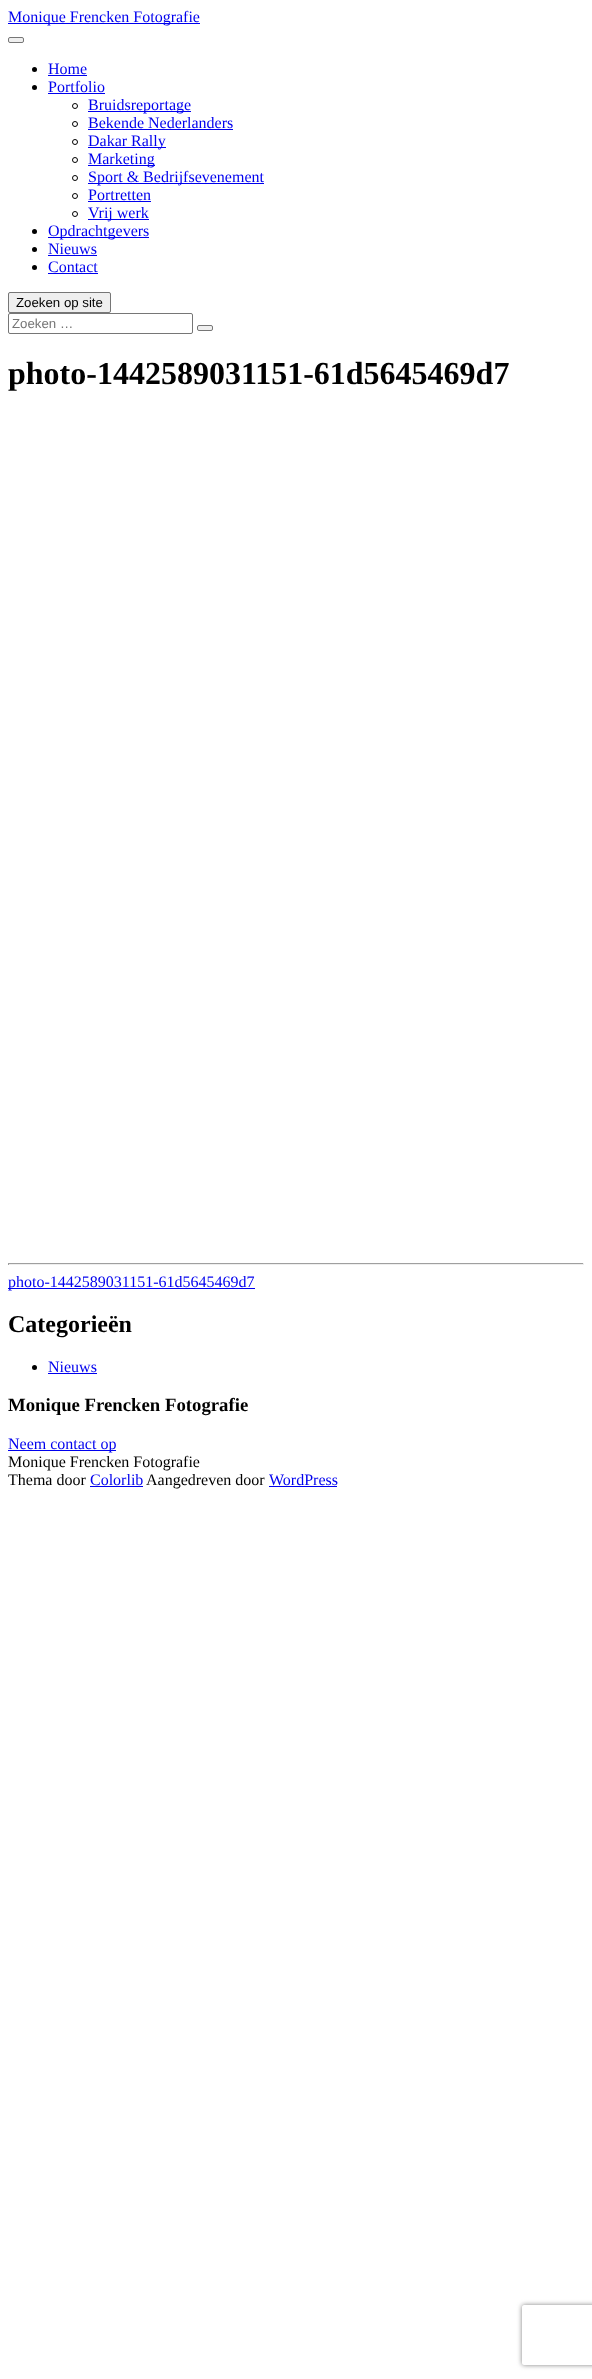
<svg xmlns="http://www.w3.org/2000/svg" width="592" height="2379">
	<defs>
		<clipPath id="clip1"><path d="M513 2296H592V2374H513ZM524 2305H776C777 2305 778 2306 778 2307V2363C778 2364 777 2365 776 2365H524C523 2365 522 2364 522 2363V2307C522 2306 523 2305 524 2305Z" clip-rule="evenodd" /></clipPath>
	</defs>
	<rect width="100%" height="100%" fill="#FFFFFF" />
	<rect x="8" y="23" width="192" height="1" fill="#0000EE" />
	<text x="8" y="22" font-family="Liberation Serif" font-size="16" fill="#0000EE">Monique Frencken Fotografie</text>
	<rect x="8.5" y="37.5" width="15" height="5" rx="1.5" fill="#EFEFEF" stroke="#767676" />
	<circle cx="34.5" cy="69.5" r="2.5" fill="#000000" />
	<text x="48" y="74" font-family="Liberation Serif" font-size="16" fill="#0000EE">Home</text>
	<rect x="48" y="75" width="39" height="1" fill="#0000EE" />
	<circle cx="34.5" cy="87.5" r="2.5" fill="#000000" />
	<text x="48" y="92" font-family="Liberation Serif" font-size="16" fill="#0000EE">Portfolio</text>
	<rect x="48" y="93" width="57" height="1" fill="#0000EE" />
	<circle cx="75" cy="106" r="2.5" fill="none" stroke="#000000" />
	<rect x="88" y="111" width="103" height="1" fill="#0000EE" />
	<text x="88" y="110" font-family="Liberation Serif" font-size="16" fill="#0000EE">Bruidsreportage</text>
	<circle cx="75" cy="124" r="2.5" fill="none" stroke="#000000" />
	<text x="88" y="128" font-family="Liberation Serif" font-size="16" fill="#0000EE">Bekende Nederlanders</text>
	<rect x="88" y="129" width="145" height="1" fill="#0000EE" />
	<circle cx="75" cy="142" r="2.5" fill="none" stroke="#000000" />
	<rect x="88" y="147" width="78" height="1" fill="#0000EE" />
	<text x="88" y="146" font-family="Liberation Serif" font-size="16" fill="#0000EE">Dakar Rally</text>
	<circle cx="75" cy="160" r="2.5" fill="none" stroke="#000000" />
	<rect x="88" y="165" width="67" height="1" fill="#0000EE" />
	<text x="88" y="164" font-family="Liberation Serif" font-size="16" fill="#0000EE">Marketing</text>
	<circle cx="75" cy="178" r="2.5" fill="none" stroke="#000000" />
	<rect x="88" y="183" width="176" height="1" fill="#0000EE" />
	<text x="88" y="182" font-family="Liberation Serif" font-size="16" fill="#0000EE">Sport &amp; Bedrijfsevenement</text>
	<circle cx="75" cy="196" r="2.5" fill="none" stroke="#000000" />
	<text x="88" y="200" font-family="Liberation Serif" font-size="16" fill="#0000EE">Portretten</text>
	<rect x="88" y="201" width="63" height="1" fill="#0000EE" />
	<circle cx="75" cy="214" r="2.5" fill="none" stroke="#000000" />
	<rect x="88" y="219" width="61" height="1" fill="#0000EE" />
	<text x="88" y="218" font-family="Liberation Serif" font-size="16" fill="#0000EE">Vrij werk</text>
	<circle cx="34.5" cy="231.5" r="2.5" fill="#000000" />
	<rect x="48" y="237" width="101" height="1" fill="#0000EE" />
	<text x="48" y="236" font-family="Liberation Serif" font-size="16" fill="#0000EE">Opdrachtgevers</text>
	<circle cx="34.5" cy="249.5" r="2.5" fill="#000000" />
	<text x="48" y="254" font-family="Liberation Serif" font-size="16" fill="#0000EE">Nieuws</text>
	<rect x="48" y="255" width="49" height="1" fill="#0000EE" />
	<circle cx="34.5" cy="267.5" r="2.5" fill="#000000" />
	<text x="48" y="272" font-family="Liberation Serif" font-size="16" fill="#0000EE">Contact</text>
	<rect x="48" y="273" width="50" height="1" fill="#0000EE" />
	<rect x="8.5" y="292.5" width="102" height="20" rx="1.5" fill="#EFEFEF" stroke="#767676" />
	<text x="16" y="307" font-family="Liberation Sans" font-size="13.25" fill="#000000">Zoeken op site</text>
	<rect x="8.5" y="313.5" width="184" height="20" rx="1.5" fill="none" stroke="#767676" />
	<text x="12" y="328" font-family="Liberation Sans" font-size="13.25" fill="#757575">Zoeken …</text>
	<rect x="197.5" y="325.5" width="15" height="5" rx="1.5" fill="#EFEFEF" stroke="#767676" />
	<text x="8" y="384" font-family="Liberation Serif" font-size="32" font-weight="700" fill="#000000">photo-1442589031151-61d5645469d7</text>
	<rect x="8" y="1263" width="576" height="1" fill="#9F9F9F" />
	<rect x="583" y="1263" width="1" height="2" fill="#EEEEEE" />
	<rect x="8" y="1264" width="576" height="1" fill="#EEEEEE" />
	<rect x="8" y="1263" width="1" height="2" fill="#9F9F9F" />
	<rect x="8" y="1288" width="247" height="1" fill="#0000EE" />
	<text x="8" y="1287" font-family="Liberation Serif" font-size="16" fill="#0000EE">photo-1442589031151-61d5645469d7</text>
	<text x="8" y="1332" font-family="Liberation Serif" font-size="24" font-weight="700" fill="#000000">Categorieën</text>
	<circle cx="34.5" cy="1367.5" r="2.5" fill="#000000" />
	<text x="48" y="1372" font-family="Liberation Serif" font-size="16" fill="#0000EE">Nieuws</text>
	<rect x="48" y="1373" width="49" height="1" fill="#0000EE" />
	<text x="8" y="1411" font-family="Liberation Serif" font-size="18.75" font-weight="700" fill="#000000">Monique Frencken Fotografie</text>
	<rect x="8" y="1450" width="108" height="1" fill="#0000EE" />
	<text x="8" y="1449" font-family="Liberation Serif" font-size="16" fill="#0000EE">Neem contact op</text>
	<g font-family="Liberation Serif" font-size="16" fill="#000000">
		<text x="8" y="1467">Monique Frencken Fotografie</text>
		<text x="8" y="1485">Thema door</text>
	</g>
	<text x="90" y="1485" font-family="Liberation Serif" font-size="16" fill="#0000EE">Colorlib</text>
	<rect x="90" y="1486" width="53" height="1" fill="#0000EE" />
	<text x="146" y="1485" font-family="Liberation Serif" font-size="16" fill="#000000">Aangedreven door</text>
	<text x="269" y="1485" font-family="Liberation Serif" font-size="16" fill="#0000EE">WordPress</text>
	<rect x="269" y="1486" width="68" height="1" fill="#0000EE" />
	<g clip-path="url(#clip1)">
		<rect x="522" y="2305" width="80" height="60" rx="2" fill="#808080" filter="blur(2.5px)" />
	</g>
</svg>
